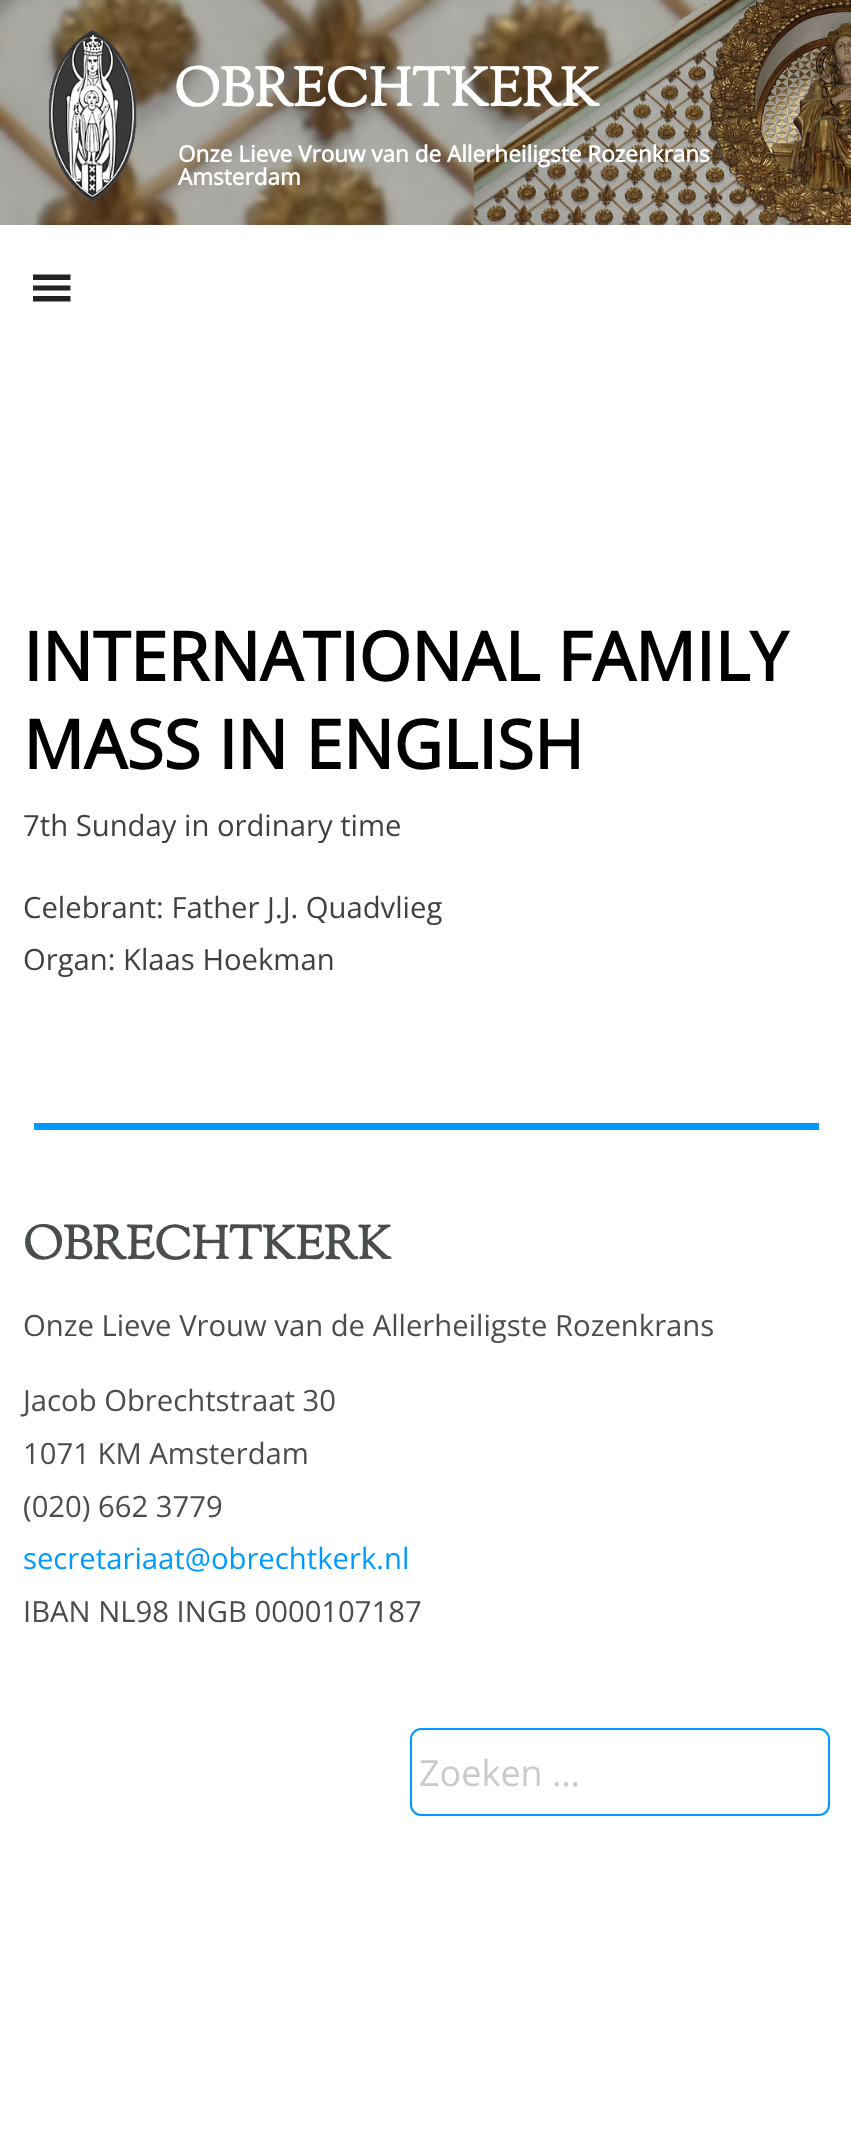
<svg xmlns="http://www.w3.org/2000/svg" width="851" height="2144">
	<rect width="100%" height="100%" fill="#FFFFFF" />
	<image x="0" y="0" width="851" height="225" href="assets/img1.png" />
	<image x="48" y="30" width="89" height="171" href="assets/img2.png" />
	<text x="174" y="106" font-family="Sorts Mill Goudy" font-size="54" font-weight="700" fill="#FFFFFF">OBRECHTKERK</text>
	<g font-family="Open Sans" font-size="22.5" font-weight="700" fill="#FFFFFF">
		<text x="178" y="162">Onze Lieve Vrouw van de Allerheiligste Rozenkrans</text>
		<text x="178" y="185">Amsterdam</text>
	</g>
	<path d="M33 301.5H70.5V296H33ZM33 274.5V280H70.5V274.5ZM33 290.5H70.5V285.5H33Z" fill="#222222" />
	<g font-family="Open Sans" font-size="67.5" font-weight="700" fill="#000000">
		<text x="23" y="681">INTERNATIONAL FAMILY</text>
		<text x="23" y="769">MASS IN ENGLISH</text>
	</g>
	<g font-family="Open Sans" font-size="29.25" fill="#404040">
		<text x="23" y="836">7th Sunday in ordinary time</text>
		<text x="23" y="918">Celebrant: Father J.J. Quadvlieg</text>
		<text x="23" y="970">Organ: Klaas Hoekman</text>
	</g>
	<rect x="34" y="1123" width="785" height="7" fill="#0099FF" />
	<text x="23" y="1259" font-family="Sorts Mill Goudy" font-size="46.75" font-weight="700" fill="#4A4D4D">OBRECHTKERK</text>
	<g font-family="Open Sans" font-size="29.25" fill="#4A4D4D">
		<text x="23" y="1336">Onze Lieve Vrouw van de Allerheiligste Rozenkrans</text>
		<text x="23" y="1411">Jacob Obrechtstraat 30</text>
		<text x="23" y="1464">1071 KM Amsterdam</text>
		<text x="23" y="1517">(020) 662 3779</text>
	</g>
	<text x="23" y="1569" font-family="Open Sans" font-size="29.25" fill="#0099FF">secretariaat@obrechtkerk.nl</text>
	<text x="23" y="1622" font-family="Open Sans" font-size="29.25" fill="#4A4D4D">IBAN NL98 INGB 0000107187</text>
	<rect x="411" y="1729" width="418" height="86" rx="10" fill="none" stroke="#0099FF" stroke-width="2" />
	<text x="419" y="1786" font-family="Open Sans" font-size="36" fill="#CACACA">Zoeken …</text>
</svg>
